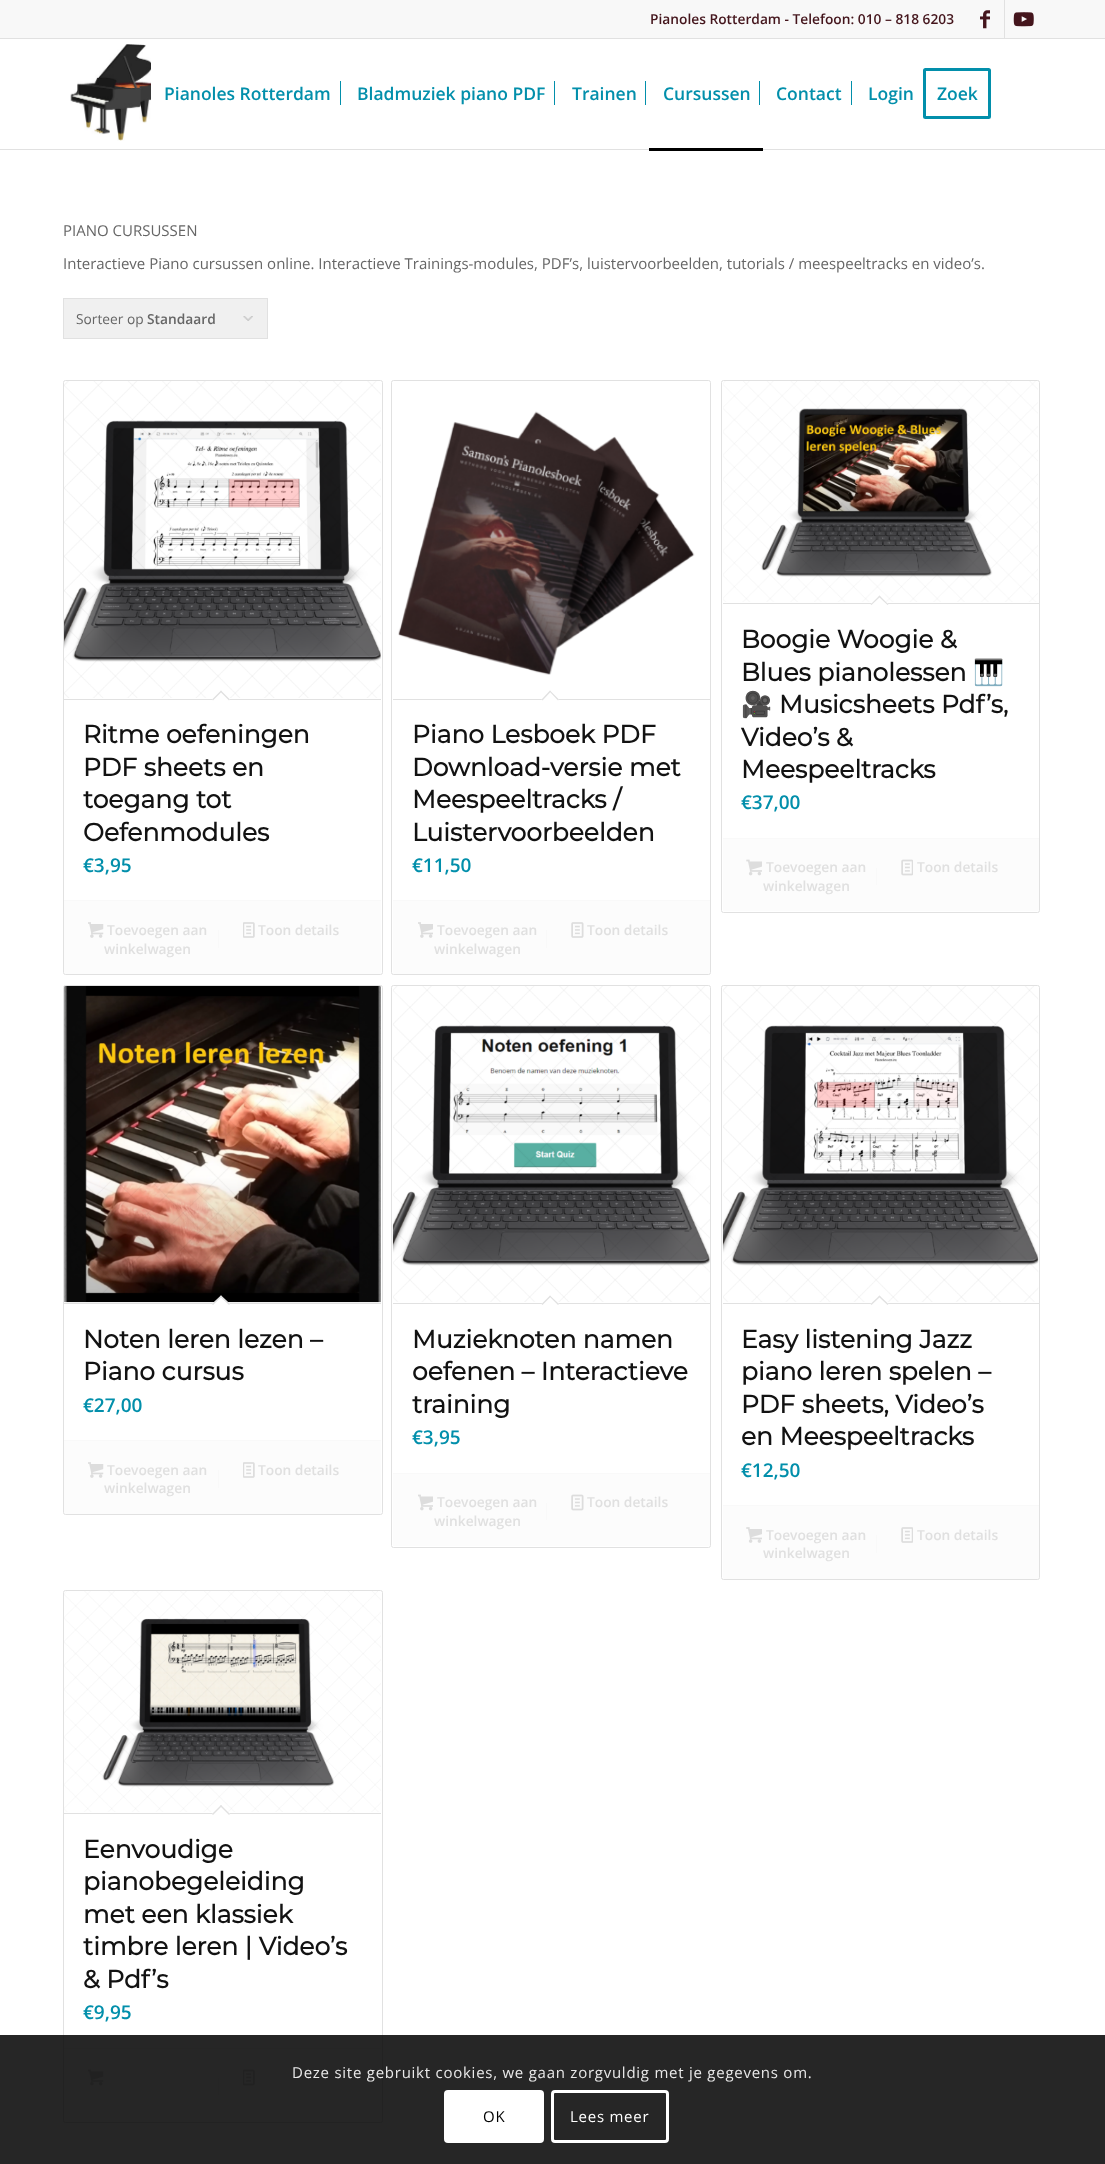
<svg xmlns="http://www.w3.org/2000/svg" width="1105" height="2164">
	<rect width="100%" height="100%" fill="#FFFFFF" />
	<rect x="0" y="0" width="1105" height="38" fill="#F8F8F8" />
	<rect x="0" y="38" width="1105" height="1" fill="#E1E1E1" />
	<text x="650" y="24" font-family="Open Sans" font-size="13.75" font-weight="600" fill="#44151C">Pianoles Rotterdam - Telefoon: 010 – 818 6203</text>
	<rect x="1004" y="0" width="1" height="38" fill="#E1E1E1" />
	<image x="980" y="10" width="10" height="19" href="assets/img1.png" />
	<image x="1013" y="12" width="21" height="15" href="assets/img2.png" />
	<rect x="0" y="149" width="1105" height="1" fill="#E1E1E1" />
	<image x="70" y="44" width="81" height="97" href="assets/img3.png" />
	<g font-family="Open Sans" font-size="17.5" font-weight="600" fill="#028FAB">
		<text x="164" y="100">Pianoles Rotterdam</text>
		<text x="357" y="100">Bladmuziek piano PDF</text>
	</g>
	<rect x="340" y="81" width="1" height="24" fill="#028FAB" />
	<text x="572" y="100" font-family="Open Sans" font-size="17.5" font-weight="600" fill="#028FAB">Trainen</text>
	<rect x="554" y="81" width="1" height="24" fill="#028FAB" />
	<text x="663" y="100" font-family="Open Sans" font-size="17.5" font-weight="600" fill="#028FAB">Cursussen</text>
	<rect x="645" y="81" width="1" height="24" fill="#028FAB" />
	<rect x="649" y="148" width="114" height="3" fill="#000000" />
	<text x="776" y="100" font-family="Open Sans" font-size="17.5" font-weight="600" fill="#028FAB">Contact</text>
	<rect x="759" y="81" width="1" height="24" fill="#028FAB" />
	<text x="868" y="100" font-family="Open Sans" font-size="17.5" font-weight="600" fill="#028FAB">Login</text>
	<rect x="851" y="81" width="1" height="24" fill="#028FAB" />
	<rect x="924.5" y="69.5" width="65" height="48" rx="1" fill="none" stroke="#028FAB" stroke-width="3" />
	<text x="937" y="100" font-family="Open Sans" font-size="17.5" font-weight="600" fill="#028FAB">Zoek</text>
	<g font-family="Open Sans" font-size="15" fill="#666666">
		<text x="63" y="236">PIANO CURSUSSEN</text>
		<text x="63" y="269">Interactieve Piano cursussen online. Interactieve Trainings-modules, PDF’s, luistervoorbeelden, tutorials / meespeeltracks en video’s.</text>
	</g>
	<rect x="64" y="299" width="203" height="39" fill="#F0F0F0" />
	<image x="243" y="316" width="10" height="5" href="assets/img4.png" />
	<rect x="63.5" y="298.5" width="204" height="40" fill="none" stroke="#E1E1E1" />
	<text x="76" y="324" font-family="Open Sans" font-size="13.75" fill="#666666">Sorteer op</text>
	<text x="147" y="324" font-family="Open Sans" font-size="13.75" font-weight="600" fill="#666666">Standaard</text>
	<rect x="63.5" y="380.5" width="319" height="594" rx="2" fill="none" stroke="#E1E1E1" />
	<image x="64" y="381" width="317" height="317" href="assets/img5.png" />
	<rect x="64" y="699" width="317" height="1" fill="#E1E1E1" />
	<path d="M221 690.5L230 699.5L221 708.5L212 699.5Z" fill="#FFFFFF" />
	<path d="M221 690.5L230 699.5L229 700.5L220 691.5Z" fill="#E1E1E1" />
	<path d="M221 690.5L222 691.5L213 700.5L212 699.5Z" fill="#E1E1E1" />
	<g font-family="Montserrat" font-size="25" font-weight="700" fill="#121212">
		<text x="83" y="743">Ritme oefeningen</text>
		<text x="83" y="776">PDF sheets en</text>
		<text x="83" y="808">toegang tot</text>
		<text x="83" y="841">Oefenmodules</text>
	</g>
	<text x="83" y="872" font-family="Open Sans" font-size="19" font-weight="600" fill="#028FAB">€3,95</text>
	<rect x="64" y="901" width="317" height="73" fill="#F0F0F0" fill-opacity="0.2" />
	<rect x="64" y="900" width="317" height="1" fill="#F9F9F9" />
	<image x="88" y="922" width="16" height="16" href="assets/img6.png" />
	<g font-family="Open Sans" font-size="13.75" font-weight="600" fill="#E0E0E0">
		<text x="107" y="935">Toevoegen aan</text>
		<text x="104" y="954">winkelwagen</text>
	</g>
	<rect x="218" y="930" width="1" height="18" fill="#F9F9F9" />
	<image x="243" y="922" width="12" height="16" href="assets/img7.png" />
	<text x="258" y="935" font-family="Open Sans" font-size="13.75" font-weight="600" fill="#E0E0E0">Toon details</text>
	<rect x="391.5" y="380.5" width="319" height="594" rx="2" fill="none" stroke="#E1E1E1" />
	<image x="398" y="411" width="297" height="264" href="assets/img8.png" />
	<rect x="393" y="699" width="317" height="1" fill="#E1E1E1" />
	<path d="M550 690.5L559 699.5L550 708.5L541.5 699.5Z" fill="#FFFFFF" />
	<path d="M550 690.5L559 699.5L558 700.5L549.5 691.5Z" fill="#E1E1E1" />
	<path d="M550 690.5L551 691.5L542.5 700.5L541.5 699.5Z" fill="#E1E1E1" />
	<g font-family="Montserrat" font-size="25" font-weight="700" fill="#121212">
		<text x="412" y="743">Piano Lesboek PDF</text>
		<text x="412" y="776">Download-versie met</text>
		<text x="412" y="808">Meespeeltracks /</text>
		<text x="412" y="841">Luistervoorbeelden</text>
	</g>
	<text x="412" y="872" font-family="Open Sans" font-size="19" font-weight="600" fill="#028FAB">€11,50</text>
	<rect x="393" y="901" width="317" height="73" fill="#F0F0F0" fill-opacity="0.2" />
	<rect x="393" y="900" width="317" height="1" fill="#F9F9F9" />
	<image x="418" y="922" width="15" height="16" href="assets/img9.png" />
	<g font-family="Open Sans" font-size="13.75" font-weight="600" fill="#E0E0E0">
		<text x="437" y="935">Toevoegen aan</text>
		<text x="434" y="954">winkelwagen</text>
	</g>
	<rect x="546" y="930" width="1" height="18" fill="#F9F9F9" />
	<image x="571" y="922" width="13" height="16" href="assets/img10.png" />
	<text x="587" y="935" font-family="Open Sans" font-size="13.75" font-weight="600" fill="#E0E0E0">Toon details</text>
	<rect x="721.5" y="380.5" width="318" height="532" rx="2" fill="none" stroke="#E1E1E1" />
	<image x="723" y="381" width="315" height="221" href="assets/img11.png" />
	<rect x="723" y="603" width="316" height="1" fill="#E1E1E1" />
	<path d="M879.5 595.5L888.5 604.5L879.5 613L870.5 604.5Z" fill="#FFFFFF" />
	<path d="M879.5 595.5L888.5 604.5L887.5 605L878.5 596.5Z" fill="#E1E1E1" />
	<path d="M879.5 595.5L880.5 596.5L871.5 605L870.5 604.5Z" fill="#E1E1E1" />
	<g font-family="Montserrat" font-size="25" font-weight="700" fill="#121212">
		<text x="741" y="648">Boogie Woogie &amp;</text>
		<text x="741" y="681">Blues pianolessen</text>
	</g>
	<g font-family="Noto Color Emoji" font-size="25" font-weight="700" fill="#121212">
		<text x="973" y="681">🎹</text>
		<text x="741" y="713">🎥</text>
	</g>
	<g font-family="Montserrat" font-size="25" font-weight="700" fill="#121212">
		<text x="779" y="713">Musicsheets Pdf’s,</text>
		<text x="741" y="746">Video’s &amp;</text>
		<text x="741" y="778">Meespeeltracks</text>
	</g>
	<text x="741" y="809" font-family="Open Sans" font-size="19" font-weight="600" fill="#028FAB">€37,00</text>
	<path d="M723 838H1039V910C1039 910.5 1038.5 911 1038 911H724C723.5 911 723 910.5 723 910Z" fill="#FCFCFC" />
	<rect x="723" y="838" width="316" height="1" fill="#F9F9F9" />
	<image x="746" y="859" width="16" height="17" href="assets/img12.png" />
	<g font-family="Open Sans" font-size="13.75" font-weight="600" fill="#E0E0E0">
		<text x="766" y="872">Toevoegen aan</text>
		<text x="763" y="891">winkelwagen</text>
	</g>
	<rect x="876" y="868" width="1" height="17" fill="#F9F9F9" />
	<image x="901" y="859" width="12" height="17" href="assets/img13.png" />
	<text x="917" y="872" font-family="Open Sans" font-size="13.75" font-weight="600" fill="#E0E0E0">Toon details</text>
	<rect x="63.5" y="985.5" width="319" height="529" rx="2" fill="none" stroke="#E1E1E1" />
	<image x="64" y="986" width="317" height="317" href="assets/img14.png" />
	<rect x="64" y="1303" width="317" height="1" fill="#E1E1E1" />
	<path d="M221 1295.5L230 1304L221 1313L212 1304Z" fill="#FFFFFF" />
	<path d="M221 1295.5L230 1304L229 1305L220 1296.5Z" fill="#E1E1E1" />
	<path d="M221 1295.5L222 1296.5L213 1305L212 1304Z" fill="#E1E1E1" />
	<g font-family="Montserrat" font-size="25" font-weight="700" fill="#121212">
		<text x="83" y="1348">Noten leren lezen –</text>
		<text x="83" y="1380">Piano cursus</text>
	</g>
	<text x="83" y="1412" font-family="Open Sans" font-size="19" font-weight="600" fill="#028FAB">€27,00</text>
	<rect x="64" y="1441" width="317" height="73" fill="#F0F0F0" fill-opacity="0.2" />
	<rect x="64" y="1440" width="317" height="1" fill="#F9F9F9" />
	<image x="88" y="1462" width="16" height="16" href="assets/img6.png" />
	<g font-family="Open Sans" font-size="13.75" font-weight="600" fill="#E0E0E0">
		<text x="107" y="1475">Toevoegen aan</text>
		<text x="104" y="1493">winkelwagen</text>
	</g>
	<rect x="218" y="1470" width="1" height="18" fill="#F9F9F9" />
	<image x="243" y="1462" width="12" height="16" href="assets/img7.png" />
	<text x="258" y="1475" font-family="Open Sans" font-size="13.75" font-weight="600" fill="#E0E0E0">Toon details</text>
	<rect x="391.5" y="985.5" width="319" height="562" rx="2" fill="none" stroke="#E1E1E1" />
	<image x="392" y="986" width="318" height="316" href="assets/img15.png" />
	<rect x="393" y="1303" width="317" height="1" fill="#E1E1E1" />
	<path d="M550 1295.5L559 1304L550 1313L541.5 1304Z" fill="#FFFFFF" />
	<path d="M550 1295.5L559 1304L558 1305L549.5 1296.5Z" fill="#E1E1E1" />
	<path d="M550 1295.5L551 1296.5L542.5 1305L541.5 1304Z" fill="#E1E1E1" />
	<g font-family="Montserrat" font-size="25" font-weight="700" fill="#121212">
		<text x="412" y="1348">Muzieknoten namen</text>
		<text x="412" y="1380">oefenen – Interactieve</text>
		<text x="412" y="1413">training</text>
	</g>
	<text x="412" y="1444" font-family="Open Sans" font-size="19" font-weight="600" fill="#028FAB">€3,95</text>
	<path d="M393 1473H710V1545C710 1545.5 709.5 1546 709 1546H394C393.5 1546 393 1545.5 393 1545Z" fill="#FCFCFC" />
	<rect x="393" y="1473" width="317" height="1" fill="#F9F9F9" />
	<image x="418" y="1494" width="15" height="17" href="assets/img16.png" />
	<g font-family="Open Sans" font-size="13.75" font-weight="600" fill="#E0E0E0">
		<text x="437" y="1507">Toevoegen aan</text>
		<text x="434" y="1526">winkelwagen</text>
	</g>
	<rect x="546" y="1503" width="1" height="17" fill="#F9F9F9" />
	<image x="571" y="1494" width="13" height="17" href="assets/img17.png" />
	<text x="587" y="1507" font-family="Open Sans" font-size="13.75" font-weight="600" fill="#E0E0E0">Toon details</text>
	<rect x="721.5" y="985.5" width="318" height="594" rx="2" fill="none" stroke="#E1E1E1" />
	<image x="722" y="986" width="317" height="316" href="assets/img18.png" />
	<rect x="723" y="1303" width="316" height="1" fill="#E1E1E1" />
	<path d="M879.5 1295.5L888.5 1304L879.5 1313L870.5 1304Z" fill="#FFFFFF" />
	<path d="M879.5 1295.5L888.5 1304L887.5 1305L878.5 1296.5Z" fill="#E1E1E1" />
	<path d="M879.5 1295.5L880.5 1296.5L871.5 1305L870.5 1304Z" fill="#E1E1E1" />
	<g font-family="Montserrat" font-size="25" font-weight="700" fill="#121212">
		<text x="741" y="1348">Easy listening Jazz</text>
		<text x="741" y="1380">piano leren spelen –</text>
		<text x="741" y="1413">PDF sheets, Video’s</text>
		<text x="741" y="1445">en Meespeeltracks</text>
	</g>
	<text x="741" y="1477" font-family="Open Sans" font-size="19" font-weight="600" fill="#028FAB">€12,50</text>
	<rect x="723" y="1506" width="316" height="73" fill="#F0F0F0" fill-opacity="0.2" />
	<rect x="723" y="1505" width="316" height="1" fill="#F9F9F9" />
	<image x="746" y="1527" width="16" height="16" href="assets/img19.png" />
	<g font-family="Open Sans" font-size="13.75" font-weight="600" fill="#E0E0E0">
		<text x="766" y="1540">Toevoegen aan</text>
		<text x="763" y="1558">winkelwagen</text>
	</g>
	<rect x="876" y="1535" width="1" height="18" fill="#F9F9F9" />
	<image x="901" y="1527" width="12" height="16" href="assets/img20.png" />
	<text x="917" y="1540" font-family="Open Sans" font-size="13.75" font-weight="600" fill="#E0E0E0">Toon details</text>
	<rect x="63.5" y="1590.5" width="319" height="532" rx="2" fill="none" stroke="#E1E1E1" />
	<image x="64" y="1591" width="317" height="221" href="assets/img21.png" />
	<rect x="64" y="1813" width="317" height="1" fill="#E1E1E1" />
	<path d="M221 1805L230 1814L221 1822.5L212 1814Z" fill="#FFFFFF" />
	<path d="M221 1805L230 1814L229 1815L220 1806Z" fill="#E1E1E1" />
	<path d="M221 1805L222 1806L213 1815L212 1814Z" fill="#E1E1E1" />
	<g font-family="Montserrat" font-size="25" font-weight="700" fill="#121212">
		<text x="83" y="1858">Eenvoudige</text>
		<text x="83" y="1890">pianobegeleiding</text>
		<text x="83" y="1923">met een klassiek</text>
		<text x="83" y="1955">timbre leren | Video’s</text>
		<text x="83" y="1988">&amp; Pdf’s</text>
	</g>
	<text x="83" y="2019" font-family="Open Sans" font-size="19" font-weight="600" fill="#028FAB">€9,95</text>
	<path d="M64 2048H381V2120C381 2120.5 380.5 2121 380 2121H65C64.5 2121 64 2120.5 64 2120Z" fill="#FCFCFC" />
	<rect x="64" y="2048" width="317" height="1" fill="#F9F9F9" />
	<image x="88" y="2069" width="16" height="17" href="assets/img22.png" />
	<rect x="218" y="2078" width="1" height="17" fill="#F9F9F9" />
	<image x="243" y="2069" width="12" height="17" href="assets/img23.png" />
	<rect x="0" y="2035" width="1105" height="129" fill="#000000" fill-opacity="0.85" />
	<text x="292" y="2078" font-family="Open Sans" font-size="15" letter-spacing="0.75" fill="#E9E9E9">Deze site gebruikt cookies, we gaan zorgvuldig met je gegevens om.</text>
	<rect x="444" y="2090" width="100" height="53" rx="4" fill="#FFFFFF" />
	<text x="483" y="2122" font-family="Open Sans" font-size="15" letter-spacing="0.75" fill="#000000">OK</text>
	<rect x="552.5" y="2091.5" width="115" height="50" rx="2.5" fill="none" stroke="#FFFFFF" stroke-width="3" />
	<text x="570" y="2122" font-family="Open Sans" font-size="15" letter-spacing="0.75" fill="#FFFFFF">Lees meer</text>
</svg>
